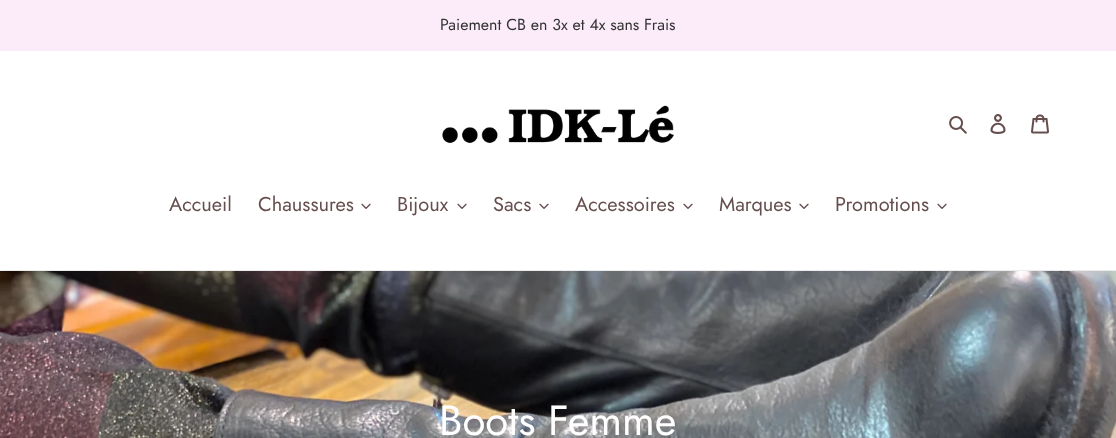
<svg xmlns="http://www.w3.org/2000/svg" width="1116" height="438">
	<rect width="100%" height="100%" fill="#FFFFFF" />
	<rect x="0" y="0" width="1116" height="51" fill="#FCECFA" />
	<text x="440" y="30" font-family="Jost" font-size="16" fill="#333232">Paiement CB en 3x et 4x sans Frais</text>
	<image x="442" y="105" width="232" height="39" href="assets/img1.png" />
	<image x="949" y="116" width="18" height="18" href="assets/img2.png" />
	<image x="990" y="114" width="16" height="20" href="assets/img3.png" />
	<image x="1031" y="114" width="18" height="20" href="assets/img4.png" />
	<rect x="0" y="270" width="1116" height="1" fill="#EBEBEB" />
	<g font-family="Jost" font-size="20" fill="#664E4E">
		<text x="169" y="211">Accueil</text>
		<text x="258" y="211">Chaussures</text>
	</g>
	<image x="361" y="203" width="10" height="6" href="assets/img5.png" />
	<text x="397" y="211" font-family="Jost" font-size="20" fill="#664E4E">Bijoux</text>
	<image x="457" y="203" width="10" height="6" href="assets/img5.png" />
	<text x="493" y="211" font-family="Jost" font-size="20" fill="#664E4E">Sacs</text>
	<image x="539" y="203" width="10" height="6" href="assets/img5.png" />
	<text x="575" y="211" font-family="Jost" font-size="20" fill="#664E4E">Accessoires</text>
	<image x="683" y="203" width="10" height="6" href="assets/img5.png" />
	<text x="719" y="211" font-family="Jost" font-size="20" fill="#664E4E">Marques</text>
	<image x="799" y="203" width="10" height="6" href="assets/img5.png" />
	<text x="835" y="211" font-family="Jost" font-size="20" fill="#664E4E">Promotions</text>
	<image x="937" y="203" width="10" height="6" href="assets/img5.png" />
	<image x="0" y="271" width="1116" height="167" href="assets/img6.png" />
	<text x="439" y="435" font-family="Jost" font-size="42" fill="#FFFFFF">Boots Femme</text>
</svg>
